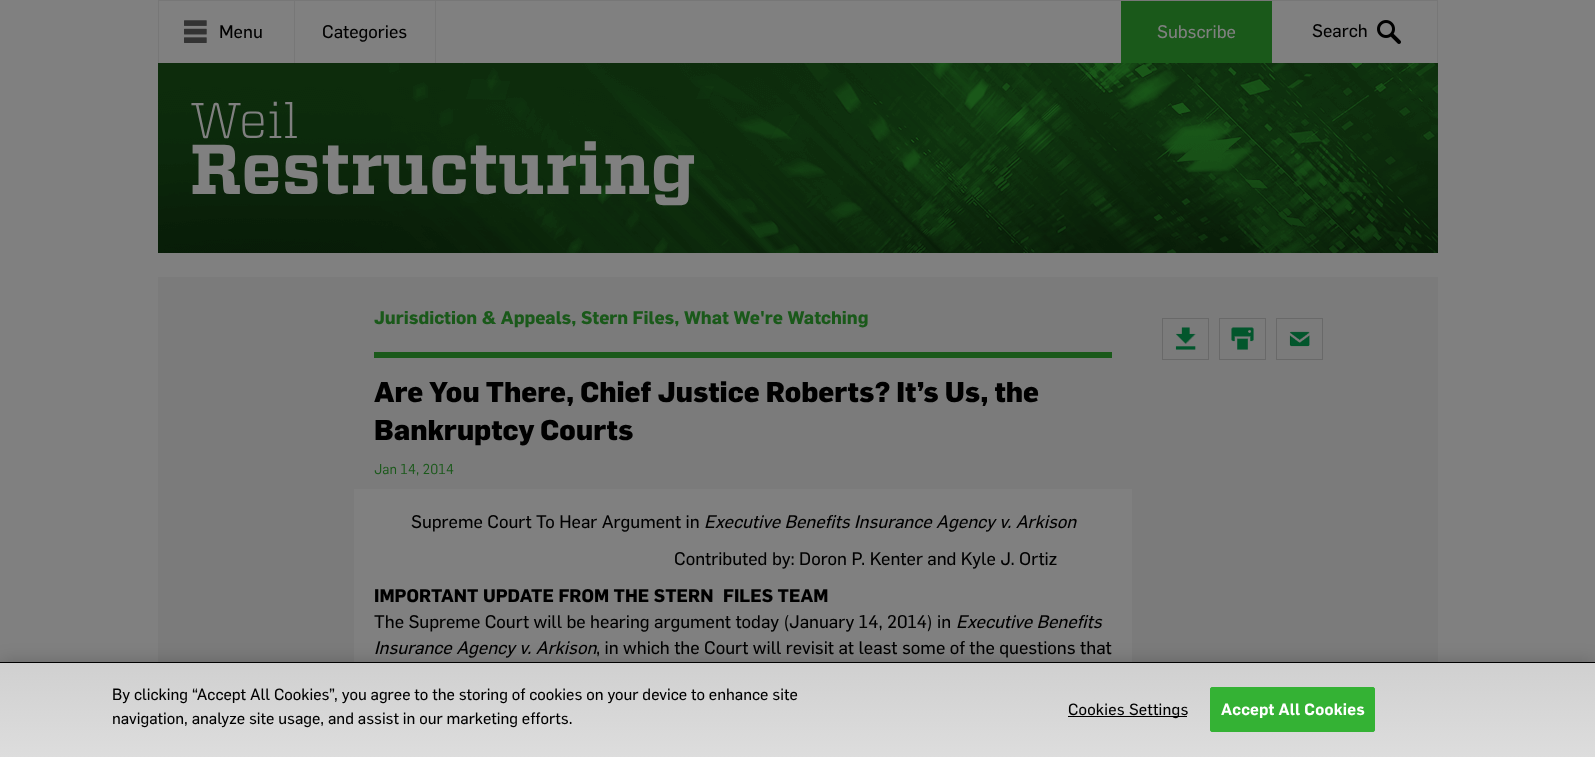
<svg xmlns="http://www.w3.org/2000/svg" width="1595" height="757">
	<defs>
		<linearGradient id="g1" gradientUnits="userSpaceOnUse" x1="798" y1="663" x2="798" y2="757"><stop offset="0" stop-color="#D0D0D0" /><stop offset="1" stop-color="#DDDDDD" /></linearGradient>
	</defs>
	<rect width="100%" height="100%" fill="#808080" />
	<rect x="158" y="0" width="1280" height="1" fill="#777777" />
	<rect x="1437" y="0" width="1" height="63" fill="#777777" />
	<rect x="158" y="0" width="1" height="63" fill="#777777" />
	<rect x="294" y="1" width="1" height="62" fill="#777777" />
	<image x="184" y="20" width="23" height="23" href="assets/img1.png" />
	<text x="219" y="38" font-family="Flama" font-size="18" font-weight="600" fill="#000000">Menu</text>
	<rect x="435" y="1" width="1" height="62" fill="#777777" />
	<text x="322" y="38" font-family="Flama" font-size="18" font-weight="600" fill="#000000">Categories</text>
	<rect x="1121" y="1" width="151" height="62" fill="#1A591A" />
	<text x="1157" y="38" font-family="Flama" font-size="18" font-weight="600" fill="#808080">Subscribe</text>
	<text x="1312" y="37" font-family="Flama" font-size="18" font-weight="600" fill="#000000">Search</text>
	<image x="1377" y="20" width="24" height="24" href="assets/img2.png" />
	<image x="158" y="63" width="1280" height="190" href="assets/img3.png" />
	<text x="190" y="138" font-family="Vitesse" font-size="50" font-weight="300" fill="#808080">Weil</text>
	<text x="190" y="194" font-family="Vitesse" font-size="70.5" font-weight="700" fill="#808080">Restructuring</text>
	<rect x="158" y="277" width="1280" height="385" fill="#7B7B7B" />
	<text x="374" y="324" font-family="Flama" font-size="18" font-weight="700" fill="#1A591A">Jurisdiction &amp; Appeals, Stern Files, What We're Watching</text>
	<rect x="374" y="352" width="738" height="6" fill="#1A591A" />
	<g font-family="Flama" font-size="28" font-weight="800" fill="#000000">
		<text x="374" y="402">Are You There, Chief Justice Roberts? It’s Us, the</text>
		<text x="374" y="440">Bankruptcy Courts</text>
	</g>
	<text x="374" y="474" font-family="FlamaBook" font-size="14" fill="#1A591A">Jan 14, 2014</text>
	<rect x="374" y="509" width="738" height="153" fill="#808080" />
	<rect x="364" y="499" width="758" height="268" fill="none" stroke="#808080" stroke-width="20" />
	<text x="411" y="528" font-family="Flama" font-size="18" font-weight="600" fill="#000000">Supreme Court To Hear Argument in</text>
	<text x="704" y="528" font-family="Flama" font-size="18" font-weight="600" font-style="italic" fill="#000000">Executive Benefits Insurance Agency v. Arkison</text>
	<text x="674" y="565" font-family="Flama" font-size="18" font-weight="600" fill="#000000">Contributed by: Doron P. Kenter and Kyle J. Ortiz</text>
	<g font-family="Flama" font-size="18" font-weight="700" fill="#000000">
		<text x="374" y="602">IMPORTANT UPDATE FROM THE STERN</text>
		<text x="723" y="602">FILES TEAM</text>
	</g>
	<text x="374" y="628" font-family="Flama" font-size="18" font-weight="600" fill="#000000">The Supreme Court will be hearing argument today (January 14, 2014) in</text>
	<g font-family="Flama" font-size="18" font-weight="600" font-style="italic" fill="#000000">
		<text x="956" y="628">Executive Benefits</text>
		<text x="374" y="654">Insurance Agency v. Arkison</text>
	</g>
	<text x="596" y="654" font-family="Flama" font-size="18" font-weight="600" fill="#000000">, in which the Court will revisit at least some of the questions that</text>
	<rect x="1162.5" y="318.5" width="46" height="41" fill="none" stroke="#696969" />
	<image x="1175" y="327" width="21" height="23" href="assets/img4.png" />
	<rect x="1219.5" y="318.5" width="46" height="41" fill="none" stroke="#696969" />
	<image x="1231" y="327" width="23" height="23" href="assets/img5.png" />
	<rect x="1276.5" y="318.5" width="46" height="41" fill="none" stroke="#696969" />
	<image x="1289" y="331" width="21" height="16" href="assets/img6.png" />
	<rect x="0" y="662" width="1595" height="95" fill="#000000" fill-opacity="0.2" filter="blur(9px)" />
	<rect x="0" y="663" width="1595" height="94" fill="url(#g1)" />
	<rect x="0" y="662" width="1595" height="1" fill="#000000" />
	<g font-family="Flama" font-size="16" font-weight="600" fill="#000000">
		<text x="112" y="700">By clicking “Accept All Cookies”, you agree to the storing of cookies on your device to enhance site</text>
		<text x="112" y="724">navigation, analyze site usage, and assist in our marketing efforts.</text>
	</g>
	<rect x="1068" y="716" width="119" height="1" fill="#000000" />
	<text x="1068" y="715" font-family="Flama" font-size="16" font-weight="600" letter-spacing="0.2" fill="#000000">Cookies Settings</text>
	<rect x="1210.5" y="687.5" width="164" height="44" rx="1.5" fill="#34B234" stroke="#34B234" />
	<text x="1221" y="715" font-family="'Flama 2'" font-size="16" font-weight="600" letter-spacing="0.2" fill="#FFFFFF">Accept All Cookies</text>
</svg>
